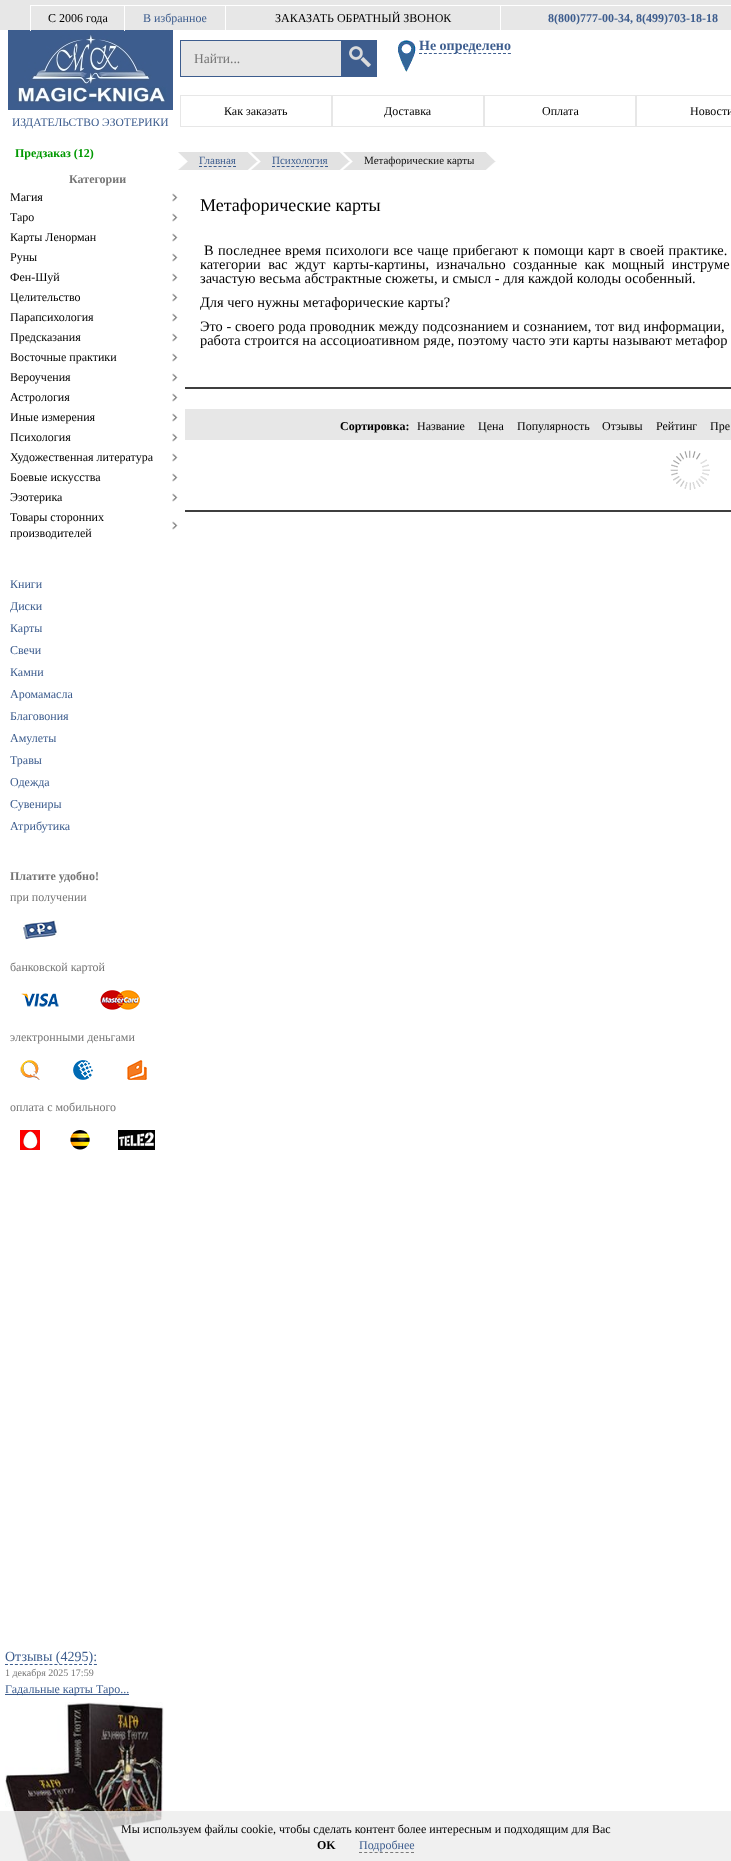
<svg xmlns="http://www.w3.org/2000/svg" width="731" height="1861">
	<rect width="100%" height="100%" fill="#E7E7E7" />
	<rect x="500" y="5" width="231" height="1" fill="#FFFFFF" />
	<rect x="0" y="30" width="731" height="1831" fill="#FFFFFF" />
	<rect x="500" y="5" width="1" height="26" fill="#FFFFFF" />
	<rect x="225" y="5" width="276" height="1" fill="#FFFFFF" />
	<rect x="225" y="5" width="1" height="26" fill="#FFFFFF" />
	<rect x="124" y="5" width="102" height="1" fill="#FFFFFF" />
	<image x="8" y="30" width="165" height="80" href="assets/img3.png" />
	<rect x="124" y="5" width="1" height="26" fill="#FFFFFF" />
	<rect x="30" y="5" width="95" height="1" fill="#FFFFFF" />
	<rect x="30" y="5" width="1" height="26" fill="#FFFFFF" />
	<text x="48" y="22" font-family="Liberation Serif" font-size="12" fill="#000000">С 2006 года</text>
	<text x="143" y="22" font-family="Liberation Serif" font-size="12" fill="#3D5D8E">В избранное</text>
	<text x="275" y="22" font-family="Liberation Serif" font-size="12" fill="#000000">ЗАКАЗАТЬ ОБРАТНЫЙ ЗВОНОК</text>
	<text x="548" y="22" font-family="Liberation Serif" font-size="12" font-weight="700" fill="#3D5D8E">8(800)777-00-34, 8(499)703-18-18</text>
	<image x="398" y="40" width="18" height="32" href="assets/img1.png" />
	<text x="419" y="50" font-family="Liberation Serif" font-size="14" font-weight="700" fill="#3D5D8E">Не определено</text>
	<path d="M419 53.5H511" fill="none" stroke="#3D5D8E" stroke-dasharray="3 1.94" />
	<rect x="180.5" y="40.5" width="161" height="36" fill="#E7E7E7" stroke="#3D5D8E" />
	<text x="194" y="63" font-family="Liberation Serif" font-size="13.5" fill="#757575">Найти...</text>
	<rect x="342" y="40" width="35" height="37" fill="#3D5D8E" />
	<image x="349" y="46" width="22" height="21" href="assets/img2.png" />
	<rect x="180.5" y="95.5" width="151" height="31" fill="none" stroke="#E7E7E7" />
	<text x="224" y="115" font-family="Liberation Serif" font-size="12" fill="#000000">Как заказать</text>
	<rect x="332.5" y="95.5" width="151" height="31" fill="none" stroke="#E7E7E7" />
	<text x="384" y="115" font-family="Liberation Serif" font-size="12" fill="#000000">Доставка</text>
	<rect x="484.5" y="95.5" width="151" height="31" fill="none" stroke="#E7E7E7" />
	<text x="542" y="115" font-family="Liberation Serif" font-size="12" fill="#000000">Оплата</text>
	<rect x="636.5" y="95.5" width="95" height="31" fill="none" stroke="#E7E7E7" />
	<text x="690" y="115" font-family="Liberation Serif" font-size="12" fill="#000000">Новости</text>
	<text x="12" y="126" font-family="Liberation Serif" font-size="11.5" fill="#3D5D8E">ИЗДАТЕЛЬСТВО ЭЗОТЕРИКИ</text>
	<text x="15" y="157" font-family="Liberation Serif" font-size="12" font-weight="700" fill="#009900">Предзаказ (12)</text>
	<text x="69" y="183" font-family="Liberation Serif" font-size="12" font-weight="700" fill="#757575">Категории</text>
	<text x="10" y="201" font-family="Liberation Serif" font-size="12" fill="#000000">Магия</text>
	<image x="172" y="193" width="6" height="9" href="assets/img4.png" />
	<text x="10" y="221" font-family="Liberation Serif" font-size="12" fill="#000000">Таро</text>
	<image x="172" y="213" width="6" height="9" href="assets/img5.png" />
	<text x="10" y="241" font-family="Liberation Serif" font-size="12" fill="#000000">Карты Ленорман</text>
	<image x="172" y="233" width="6" height="9" href="assets/img5.png" />
	<text x="10" y="261" font-family="Liberation Serif" font-size="12" fill="#000000">Руны</text>
	<image x="172" y="253" width="6" height="9" href="assets/img5.png" />
	<text x="10" y="281" font-family="Liberation Serif" font-size="12" fill="#000000">Фен-Шуй</text>
	<image x="172" y="273" width="6" height="9" href="assets/img5.png" />
	<text x="10" y="301" font-family="Liberation Serif" font-size="12" fill="#000000">Целительство</text>
	<image x="172" y="293" width="6" height="9" href="assets/img5.png" />
	<text x="10" y="321" font-family="Liberation Serif" font-size="12" fill="#000000">Парапсихология</text>
	<image x="172" y="313" width="6" height="9" href="assets/img5.png" />
	<text x="10" y="341" font-family="Liberation Serif" font-size="12" fill="#000000">Предсказания</text>
	<image x="172" y="333" width="6" height="9" href="assets/img5.png" />
	<text x="10" y="361" font-family="Liberation Serif" font-size="12" fill="#000000">Восточные практики</text>
	<image x="172" y="353" width="6" height="9" href="assets/img5.png" />
	<text x="10" y="381" font-family="Liberation Serif" font-size="12" fill="#000000">Вероучения</text>
	<image x="172" y="373" width="6" height="9" href="assets/img5.png" />
	<text x="10" y="401" font-family="Liberation Serif" font-size="12" fill="#000000">Астрология</text>
	<image x="172" y="393" width="6" height="9" href="assets/img5.png" />
	<text x="10" y="421" font-family="Liberation Serif" font-size="12" fill="#000000">Иные измерения</text>
	<image x="172" y="413" width="6" height="9" href="assets/img5.png" />
	<text x="10" y="441" font-family="Liberation Serif" font-size="12" fill="#000000">Психология</text>
	<image x="172" y="433" width="6" height="9" href="assets/img5.png" />
	<text x="10" y="461" font-family="Liberation Serif" font-size="12" fill="#000000">Художественная литература</text>
	<image x="172" y="453" width="6" height="9" href="assets/img5.png" />
	<text x="10" y="481" font-family="Liberation Serif" font-size="12" fill="#000000">Боевые искусства</text>
	<image x="172" y="473" width="6" height="9" href="assets/img5.png" />
	<text x="10" y="501" font-family="Liberation Serif" font-size="12" fill="#000000">Эзотерика</text>
	<image x="172" y="493" width="6" height="9" href="assets/img5.png" />
	<g font-family="Liberation Serif" font-size="12" fill="#000000">
		<text x="10" y="521">Товары сторонних</text>
		<text x="10" y="537">производителей</text>
	</g>
	<image x="172" y="521" width="6" height="9" href="assets/img5.png" />
	<g font-family="Liberation Serif" font-size="12" fill="#3D5D8E">
		<text x="10" y="588">Книги</text>
		<text x="10" y="610">Диски</text>
		<text x="10" y="632">Карты</text>
		<text x="10" y="654">Свечи</text>
		<text x="10" y="676">Камни</text>
		<text x="10" y="698">Аромамасла</text>
		<text x="10" y="720">Благовония</text>
		<text x="10" y="742">Амулеты</text>
		<text x="10" y="764">Травы</text>
		<text x="10" y="786">Одежда</text>
		<text x="10" y="808">Сувениры</text>
		<text x="10" y="830">Атрибутика</text>
	</g>
	<text x="10" y="880" font-family="Liberation Serif" font-size="12" font-weight="700" fill="#757575">Платите удобно!</text>
	<text x="10" y="901" font-family="Liberation Serif" font-size="12" fill="#757575">при получении</text>
	<image x="20" y="920" width="39" height="20" href="assets/img6.png" />
	<text x="10" y="971" font-family="Liberation Serif" font-size="12" fill="#757575">банковской картой</text>
	<image x="21" y="993" width="38" height="14" href="assets/img7.png" />
	<image x="100" y="990" width="40" height="20" href="assets/img8.png" />
	<text x="10" y="1041" font-family="Liberation Serif" font-size="12" fill="#757575">электронными деньгами</text>
	<image x="20" y="1060" width="20" height="20" href="assets/img9.png" />
	<image x="73" y="1060" width="20" height="20" href="assets/img10.png" />
	<image x="127" y="1060" width="20" height="20" href="assets/img11.png" />
	<text x="10" y="1111" font-family="Liberation Serif" font-size="12" fill="#757575">оплата с мобильного</text>
	<image x="20" y="1130" width="20" height="20" href="assets/img12.png" />
	<image x="70" y="1130" width="20" height="20" href="assets/img13.png" />
	<image x="118" y="1130" width="37" height="20" href="assets/img14.png" />
	<text x="5" y="1661" font-family="Liberation Serif" font-size="14" fill="#3D5D8E">Отзывы (4295):</text>
	<path d="M5 1664.5H97" fill="none" stroke="#3D5D8E" stroke-dasharray="3 1.94" />
	<text x="5" y="1676" font-family="Liberation Serif" font-size="10" fill="#757575">1 декабря 2025 17:59</text>
	<rect x="5" y="1694" width="124" height="1" fill="#3D5D8E" />
	<text x="5" y="1693" font-family="Liberation Serif" font-size="12" fill="#3D5D8E">Гадальные карты Таро...</text>
	<image x="5" y="1702" width="159" height="159" href="assets/img15.png" />
	<image x="178" y="152" width="21" height="18" href="assets/img16.png" />
	<rect x="199" y="152" width="37" height="18" fill="#E2E2E2" />
	<path d="M199 166.5H236" fill="none" stroke="#3D5D8E" stroke-dasharray="3 1.86" />
	<text x="199" y="164" font-family="Liberation Serif" font-size="11" fill="#3D5D8E">Главная</text>
	<image x="236" y="152" width="22" height="18" href="assets/img17.png" />
	<image x="251" y="152" width="21" height="18" href="assets/img18.png" />
	<rect x="272" y="152" width="56" height="18" fill="#E2E2E2" />
	<path d="M272 166.5H328" fill="none" stroke="#3D5D8E" stroke-dasharray="3 1.82" />
	<text x="272" y="164" font-family="Liberation Serif" font-size="11" fill="#3D5D8E">Психология</text>
	<image x="328" y="152" width="22" height="18" href="assets/img17.png" />
	<image x="343" y="152" width="21" height="18" href="assets/img18.png" />
	<rect x="364" y="152" width="110" height="18" fill="#E2E2E2" />
	<text x="364" y="164" font-family="Liberation Serif" font-size="11" fill="#111111">Метафорические карты</text>
	<image x="474" y="152" width="22" height="18" href="assets/img17.png" />
	<text x="200" y="211" font-family="Liberation Serif" font-size="18" fill="#000000">Метафорические карты</text>
	<g font-family="Liberation Serif" font-size="14.4" fill="#000000">
		<text x="204" y="255" word-spacing="0.75">В последнее время психологи все чаще прибегают к помощи карт в своей практике.</text>
		<text x="200" y="269" word-spacing="3.75">категории вас ждут карты-картины, изначально созданные как мощный инструме</text>
		<text x="200" y="283">зачастую весьма абстрактные сюжеты, и смысл - для каждой колоды особенный.</text>
		<text x="200" y="307">Для чего нужны метафорические карты?</text>
		<text x="200" y="331" word-spacing="0.1">Это - своего рода проводник между подсознанием и сознанием, тот вид информации,</text>
		<text x="200" y="345">работа строится на ассоциоативном ряде, поэтому часто эти карты называют метафор</text>
	</g>
	<rect x="185" y="387" width="546" height="2" fill="#3F3F3F" />
	<rect x="185" y="510" width="546" height="2" fill="#3F3F3F" />
	<rect x="185" y="409" width="546" height="31" fill="#E7E7E7" />
	<text x="340" y="430" font-family="Liberation Serif" font-size="12" font-weight="700" fill="#000000">Сортировка:</text>
	<g font-family="Liberation Serif" font-size="12" fill="#000000">
		<text x="417" y="430">Название</text>
		<text x="478" y="430">Цена</text>
		<text x="517" y="430">Популярность</text>
		<text x="602" y="430">Отзывы</text>
		<text x="656" y="430">Рейтинг</text>
		<text x="710" y="430">Пре</text>
	</g>
	<image x="670" y="450" width="40" height="40" href="assets/img19.png" />
	<rect x="0" y="1811" width="731" height="50" fill="#ECECEC" fill-opacity="0.8" />
	<text x="121" y="1833" font-family="Liberation Serif" font-size="12" fill="#000000">Мы используем файлы cookie, чтобы сделать контент более интересным и подходящим для Вас</text>
	<text x="317" y="1849" font-family="Liberation Serif" font-size="12" font-weight="700" fill="#000000">OK</text>
	<text x="359" y="1849" font-family="Liberation Serif" font-size="12" fill="#3D5D8E">Подробнее</text>
	<path d="M359 1852.5H414" fill="none" stroke="#7A7A7A" stroke-dasharray="3 2.2" />
</svg>
